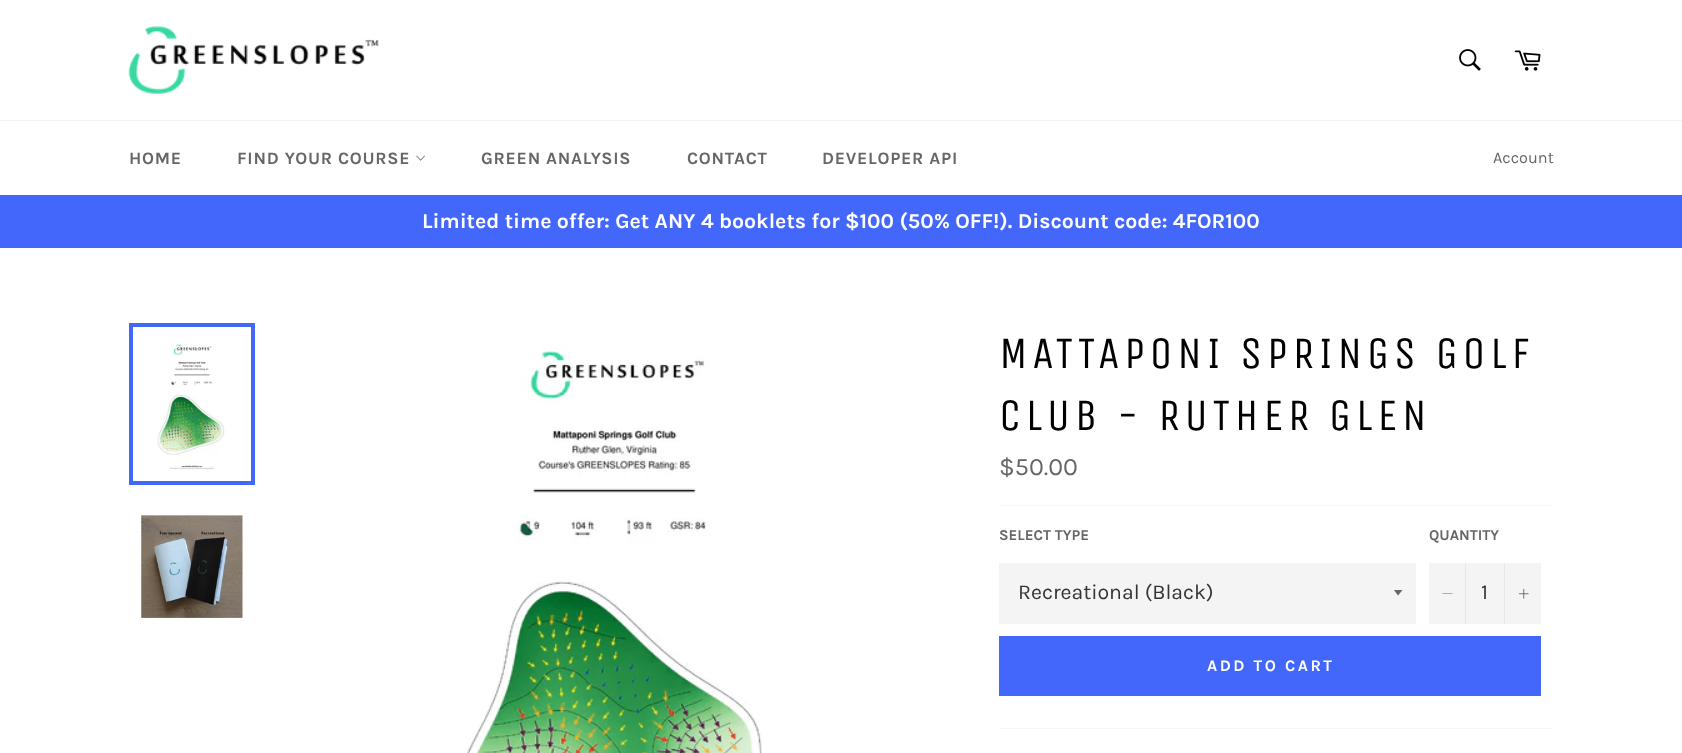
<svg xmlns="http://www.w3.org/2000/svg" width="1682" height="753">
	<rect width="100%" height="100%" fill="#FFFFFF" />
	<image x="128" y="26" width="251" height="68" href="assets/img1.png" />
	<image x="1459" y="49" width="22" height="22" href="assets/img2.png" />
	<image x="1514" y="50" width="27" height="21" href="assets/img3.png" />
	<rect x="0" y="120" width="1682" height="1" fill="#F2F2F2" />
	<g font-family="Karla" font-size="17.5" font-weight="700" letter-spacing="0.75" fill="#666666">
		<text x="129" y="164">HOME</text>
		<text x="237" y="164">FIND YOUR COURSE</text>
	</g>
	<image x="416" y="155" width="9" height="6" href="assets/img4.png" />
	<g font-family="Karla" font-size="17.5" font-weight="700" letter-spacing="0.75" fill="#666666">
		<text x="481" y="164">GREEN ANALYSIS</text>
		<text x="687" y="164">CONTACT</text>
		<text x="822" y="164">DEVELOPER API</text>
	</g>
	<text x="1493" y="163" font-family="Karla" font-size="16.25" fill="#666666">Account</text>
	<rect x="0" y="195" width="1682" height="53" fill="#4367FB" />
	<text x="422" y="228" font-family="Karla" font-size="21.25" font-weight="700" fill="#FFFFFF">Limited time offer: Get ANY 4 booklets for $100 (50% OFF!). Discount code: 4FOR100</text>
	<image x="157" y="344" width="69" height="126" href="assets/img5.png" />
	<rect x="131" y="325" width="122" height="158" fill="none" stroke="#4367FB" stroke-width="4" />
	<image x="141" y="515" width="102" height="103" href="assets/img6.png" />
	<image x="467" y="345" width="295" height="408" href="assets/img7.png" />
	<g font-family="Unica One" font-size="45" letter-spacing="4.5" fill="#000000">
		<text x="999" y="368">MATTAPONI SPRINGS GOLF</text>
		<text x="999" y="430">CLUB - RUTHER GLEN</text>
	</g>
	<text x="999" y="475" font-family="Karla" font-size="25" fill="#666666">$50.00</text>
	<rect x="999" y="505" width="555" height="1" fill="#F7F7F7" />
	<text x="999" y="540" font-family="Karla" font-size="15" font-weight="700" fill="#666666">SELECT TYPE</text>
	<rect x="999" y="563" width="417" height="61" fill="#F4F4F4" />
	<path d="M1394 590L1398 595.5L1402.5 590Z" fill="#666666" />
	<text x="1018" y="599" font-family="Karla" font-size="21.25" fill="#333333">Recreational (Black)</text>
	<text x="1429" y="540" font-family="Karla" font-size="15" font-weight="700" fill="#666666">QUANTITY</text>
	<rect x="1429" y="563" width="112" height="61" fill="#F4F4F4" />
	<rect x="1465" y="563" width="1" height="61" fill="#E7E7E7" />
	<path d="M1452.5 593.5V594H1442.5V593.5Z" fill="#666666" fill-rule="evenodd" />
	<text x="1481" y="599" font-family="Karla" font-size="21.25" fill="#333333">1</text>
	<rect x="1504" y="563" width="1" height="61" fill="#E7E7E7" />
	<image x="1519" y="589" width="10" height="10" href="assets/img8.png" />
	<rect x="999" y="636" width="542" height="60" fill="#4367FB" />
	<text x="1207" y="671" font-family="Karla" font-size="16.25" font-weight="700" letter-spacing="2.5" fill="#FFFFFF">ADD TO CART</text>
	<rect x="999" y="728" width="555" height="1" fill="#F7F7F7" />
</svg>
